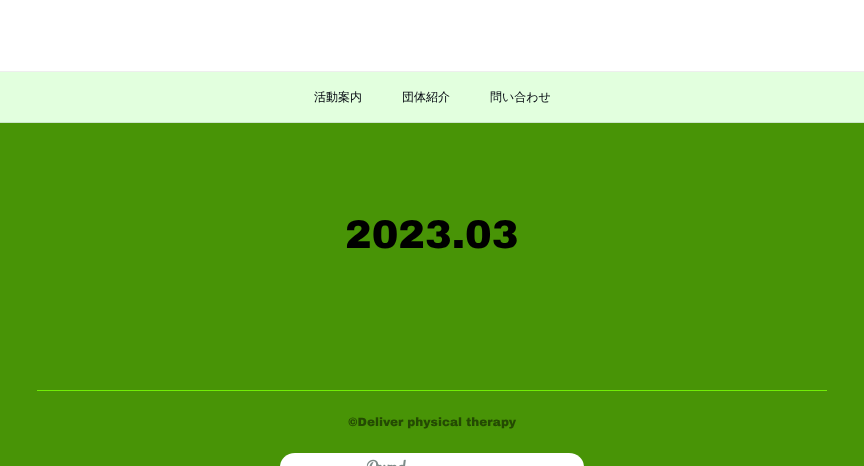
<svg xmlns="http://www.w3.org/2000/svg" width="864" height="466">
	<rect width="100%" height="100%" fill="#489406" />
	<rect x="0" y="0" width="864" height="71" fill="#FFFFFF" />
	<rect x="0" y="71" width="864" height="1" fill="#EEEEEE" />
	<rect x="0" y="72" width="864" height="50" fill="#E2FFDE" />
	<rect x="0" y="122" width="864" height="1" fill="#CBE6C8" />
	<g font-family="WenQuanYi Zen Hei" font-size="12" font-weight="500" fill="#01050D">
		<text x="314" y="101">活動案内</text>
		<text x="402" y="101">団体紹介</text>
		<text x="490" y="101">問い合わせ</text>
	</g>
	<text x="345" y="248" font-family="Archivo Black" font-size="40" font-weight="900" fill="#000000">2023.03</text>
	<rect x="37" y="390" width="790" height="1" fill="#72ED07" />
	<text x="348" y="426" font-family="Archivo Black" font-size="12" font-weight="900" fill="#244A03">©︎Deliver physical therapy</text>
	<rect x="280" y="453" width="304" height="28" rx="15" fill="#FFFFFF" />
	<image x="366" y="459" width="40" height="7" href="assets/img1.png" />
</svg>
